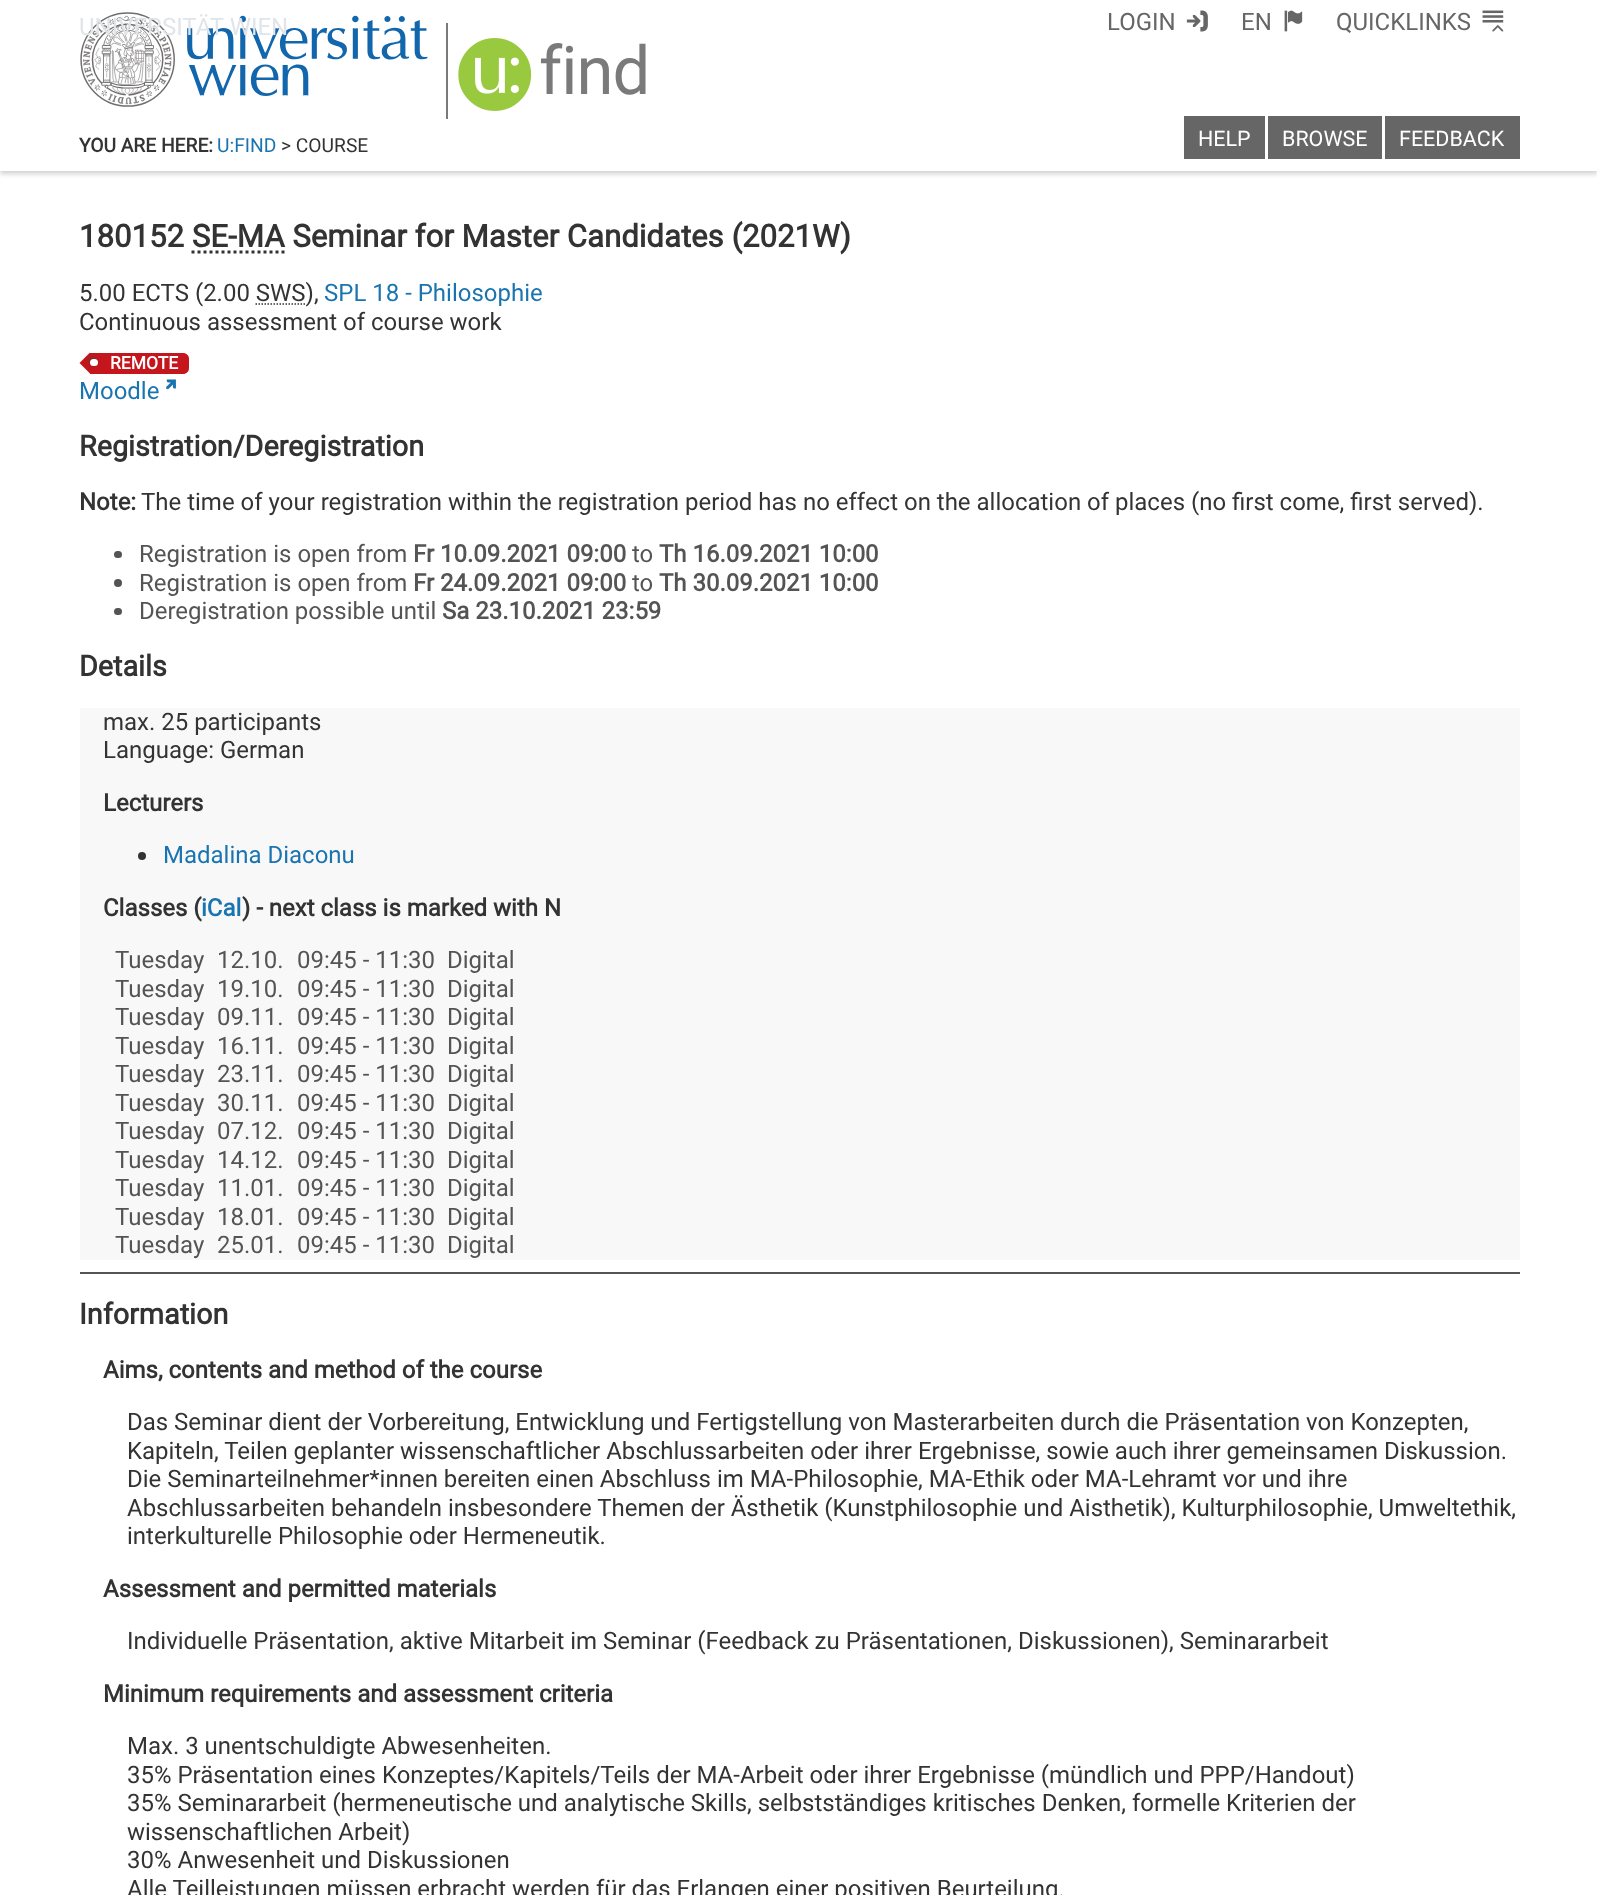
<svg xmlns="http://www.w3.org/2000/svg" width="1597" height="1895">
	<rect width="100%" height="100%" fill="#FFFFFF" />
	<rect x="0" y="3" width="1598" height="171" fill="#000000" fill-opacity="0.18" filter="blur(2.5px)" />
	<rect x="0" y="0" width="1597" height="171" fill="#FFFFFF" />
	<image x="80" y="12" width="348" height="95" href="assets/img1.png" />
	<text x="79" y="35" font-family="Roboto" font-size="24" fill="#E0E5EA">UNIVERSITÄT WIEN</text>
	<rect x="446" y="23" width="2" height="96" fill="#7A7A7A" />
	<image x="458" y="38" width="74" height="73" href="assets/img2.png" />
	<text x="539" y="94" font-family="Roboto" font-size="67" letter-spacing="-1" fill="#7A7A7A">find</text>
	<text x="1107" y="30" font-family="Roboto" font-size="24" fill="#666666">LOGIN</text>
	<image x="1186" y="10" width="22" height="22" href="assets/img3.png" />
	<text x="1241" y="30" font-family="Roboto" font-size="24" fill="#666666">EN</text>
	<image x="1284" y="10" width="19" height="22" href="assets/img4.png" />
	<text x="1336" y="30" font-family="Roboto" font-size="24" fill="#666666">QUICKLINKS</text>
	<image x="1482" y="10" width="22" height="22" href="assets/img5.png" />
	<rect x="1184" y="116" width="81" height="43" fill="#666666" />
	<text x="1198" y="146" font-family="Roboto" font-size="21.5" fill="#FFFFFF">HELP</text>
	<rect x="1268" y="116" width="114" height="43" fill="#666666" />
	<text x="1282" y="146" font-family="Roboto" font-size="21.5" fill="#FFFFFF">BROWSE</text>
	<rect x="1385" y="116" width="135" height="43" fill="#666666" />
	<text x="1399" y="146" font-family="Roboto" font-size="21.5" fill="#FFFFFF">FEEDBACK</text>
	<text x="79" y="152" font-family="Roboto" font-size="19.25" font-weight="700" fill="#333333">YOU ARE HERE:</text>
	<text x="217" y="152" font-family="Roboto" font-size="19.25" fill="#1A74B0">U:FIND</text>
	<text x="281" y="152" font-family="Roboto" font-size="19.25" fill="#333333">&gt; COURSE</text>
	<text x="79" y="247" font-family="Roboto" font-size="31.2" font-weight="700" fill="#333333">180152 SE-MA Seminar for Master Candidates (2021W)</text>
	<path d="M191.5 252H284.5" fill="none" stroke="#333333" stroke-width="3" stroke-dasharray="3 3" />
	<text x="79" y="301" font-family="Roboto" font-size="24" fill="#333333">5.00 ECTS (2.00 SWS),</text>
	<text x="324" y="301" font-family="Roboto" font-size="24" fill="#1A74B0">SPL 18 - Philosophie</text>
	<path d="M255.5 304H305.5" fill="none" stroke="#333333" stroke-width="1.5" stroke-dasharray="1.5 1.5" />
	<text x="79" y="330" font-family="Roboto" font-size="24" fill="#333333">Continuous assessment of course work</text>
	<path d="M90 352.5V373.5L79.5 363Z" fill="#C4161C" />
	<path d="M90 353H183C186.5 353 189 355.5 189 359V368C189 371.5 186.5 374 183 374H90Z" fill="#C4161C" />
	<rect x="89" y="357" width="7" height="8" rx="3.5" fill="#723230" filter="blur(2px)" />
	<rect x="90" y="359" width="8" height="7" rx="3.5" fill="#FFFFFF" />
	<text x="110" y="369" font-family="Roboto" font-size="17.5" font-weight="700" fill="#FFFFFF">REMOTE</text>
	<text x="79" y="399" font-family="Roboto" font-size="24" fill="#1A74B0">Moodle</text>
	<image x="166" y="379" width="10" height="11" href="assets/img6.png" />
	<text x="79" y="456" font-family="Roboto" font-size="28.75" font-weight="700" fill="#333333">Registration/Deregistration</text>
	<text x="79" y="510" font-family="Roboto" font-size="24" font-weight="700" fill="#333333">Note:</text>
	<text x="141" y="510" font-family="Roboto" font-size="24" fill="#333333">The time of your registration within the registration period has no effect on the allocation of places (no first come, first served).</text>
	<rect x="114" y="551" width="8" height="7" rx="3.5" fill="#545454" />
	<text x="139" y="562" font-family="Roboto" font-size="24" fill="#545454">Registration is open from</text>
	<text x="413" y="562" font-family="Roboto" font-size="24" font-weight="700" fill="#545454">Fr 10.09.2021 09:00</text>
	<text x="632" y="562" font-family="Roboto" font-size="24" fill="#545454">to</text>
	<text x="659" y="562" font-family="Roboto" font-size="24" font-weight="700" fill="#545454">Th 16.09.2021 10:00</text>
	<circle cx="118" cy="583" r="4" fill="#545454" />
	<text x="139" y="591" font-family="Roboto" font-size="24" fill="#545454">Registration is open from</text>
	<text x="413" y="591" font-family="Roboto" font-size="24" font-weight="700" fill="#545454">Fr 24.09.2021 09:00</text>
	<text x="632" y="591" font-family="Roboto" font-size="24" fill="#545454">to</text>
	<text x="659" y="591" font-family="Roboto" font-size="24" font-weight="700" fill="#545454">Th 30.09.2021 10:00</text>
	<rect x="114" y="608" width="8" height="7" rx="3.5" fill="#545454" />
	<text x="139" y="619" font-family="Roboto" font-size="24" fill="#545454">Deregistration possible until</text>
	<text x="442" y="619" font-family="Roboto" font-size="24" font-weight="700" fill="#545454">Sa 23.10.2021 23:59</text>
	<text x="79" y="676" font-family="Roboto" font-size="28.75" font-weight="700" fill="#333333">Details</text>
	<rect x="80" y="708" width="1440" height="552" fill="#F8F8F8" />
	<g font-family="Roboto" font-size="24" fill="#333333">
		<text x="103" y="730">max. 25 participants</text>
		<text x="103" y="758">Language: German</text>
	</g>
	<text x="103" y="811" font-family="Roboto" font-size="24" font-weight="700" fill="#333333">Lecturers</text>
	<circle cx="142" cy="856" r="4" fill="#333333" />
	<text x="163" y="863" font-family="Roboto" font-size="24" fill="#1A74B0">Madalina Diaconu</text>
	<text x="103" y="916" font-family="Roboto" font-size="24" font-weight="700" fill="#333333">Classes (</text>
	<text x="201" y="916" font-family="Roboto" font-size="24" font-weight="700" fill="#1A74B0">iCal</text>
	<text x="242" y="916" font-family="Roboto" font-size="24" font-weight="700" fill="#333333">) - next class is marked with N</text>
	<g font-family="Roboto" font-size="24" fill="#545454">
		<text x="115" y="968">Tuesday</text>
		<text x="217" y="968">12.10.</text>
		<text x="297" y="968">09:45 - 11:30</text>
		<text x="447" y="968">Digital</text>
		<text x="115" y="997">Tuesday</text>
		<text x="217" y="997">19.10.</text>
		<text x="297" y="997">09:45 - 11:30</text>
		<text x="447" y="997">Digital</text>
		<text x="115" y="1025">Tuesday</text>
		<text x="217" y="1025">09.11.</text>
		<text x="297" y="1025">09:45 - 11:30</text>
		<text x="447" y="1025">Digital</text>
		<text x="115" y="1054">Tuesday</text>
		<text x="217" y="1054">16.11.</text>
		<text x="297" y="1054">09:45 - 11:30</text>
		<text x="447" y="1054">Digital</text>
		<text x="115" y="1082">Tuesday</text>
		<text x="217" y="1082">23.11.</text>
		<text x="297" y="1082">09:45 - 11:30</text>
		<text x="447" y="1082">Digital</text>
		<text x="115" y="1111">Tuesday</text>
		<text x="217" y="1111">30.11.</text>
		<text x="297" y="1111">09:45 - 11:30</text>
		<text x="447" y="1111">Digital</text>
		<text x="115" y="1139">Tuesday</text>
		<text x="217" y="1139">07.12.</text>
		<text x="297" y="1139">09:45 - 11:30</text>
		<text x="447" y="1139">Digital</text>
		<text x="115" y="1168">Tuesday</text>
		<text x="217" y="1168">14.12.</text>
		<text x="297" y="1168">09:45 - 11:30</text>
		<text x="447" y="1168">Digital</text>
		<text x="115" y="1196">Tuesday</text>
		<text x="217" y="1196">11.01.</text>
		<text x="297" y="1196">09:45 - 11:30</text>
		<text x="447" y="1196">Digital</text>
		<text x="115" y="1225">Tuesday</text>
		<text x="217" y="1225">18.01.</text>
		<text x="297" y="1225">09:45 - 11:30</text>
		<text x="447" y="1225">Digital</text>
		<text x="115" y="1253">Tuesday</text>
		<text x="217" y="1253">25.01.</text>
		<text x="297" y="1253">09:45 - 11:30</text>
		<text x="447" y="1253">Digital</text>
	</g>
	<rect x="80" y="1272" width="1440" height="2" fill="#545454" />
	<text x="79" y="1324" font-family="Roboto" font-size="28.75" font-weight="700" fill="#333333">Information</text>
	<text x="103" y="1378" font-family="Roboto" font-size="24" font-weight="700" fill="#333333">Aims, contents and method of the course</text>
	<g font-family="Roboto" font-size="24" fill="#333333">
		<text x="127" y="1430">Das Seminar dient der Vorbereitung, Entwicklung und Fertigstellung von Masterarbeiten durch die Präsentation von Konzepten,</text>
		<text x="127" y="1459">Kapiteln, Teilen geplanter wissenschaftlicher Abschlussarbeiten oder ihrer Ergebnisse, sowie auch ihrer gemeinsamen Diskussion.</text>
		<text x="127" y="1487">Die Seminarteilnehmer*innen bereiten einen Abschluss im MA-Philosophie, MA-Ethik oder MA-Lehramt vor und ihre</text>
		<text x="127" y="1516">Abschlussarbeiten behandeln insbesondere Themen der Ästhetik (Kunstphilosophie und Aisthetik), Kulturphilosophie, Umweltethik,</text>
		<text x="127" y="1544">interkulturelle Philosophie oder Hermeneutik.</text>
	</g>
	<text x="103" y="1597" font-family="Roboto" font-size="24" font-weight="700" fill="#333333">Assessment and permitted materials</text>
	<text x="127" y="1649" font-family="Roboto" font-size="24" fill="#333333">Individuelle Präsentation, aktive Mitarbeit im Seminar (Feedback zu Präsentationen, Diskussionen), Seminararbeit</text>
	<text x="103" y="1702" font-family="Roboto" font-size="24" font-weight="700" fill="#333333">Minimum requirements and assessment criteria</text>
	<g font-family="Roboto" font-size="24" fill="#333333">
		<text x="127" y="1754">Max. 3 unentschuldigte Abwesenheiten.</text>
		<text x="127" y="1783">35% Präsentation eines Konzeptes/Kapitels/Teils der MA-Arbeit oder ihrer Ergebnisse (mündlich und PPP/Handout)</text>
		<text x="127" y="1811">35% Seminararbeit (hermeneutische und analytische Skills, selbstständiges kritisches Denken, formelle Kriterien der</text>
		<text x="127" y="1840">wissenschaftlichen Arbeit)</text>
		<text x="127" y="1868">30% Anwesenheit und Diskussionen</text>
		<text x="127" y="1897">Alle Teilleistungen müssen erbracht werden für das Erlangen einer positiven Beurteilung.</text>
	</g>
</svg>
